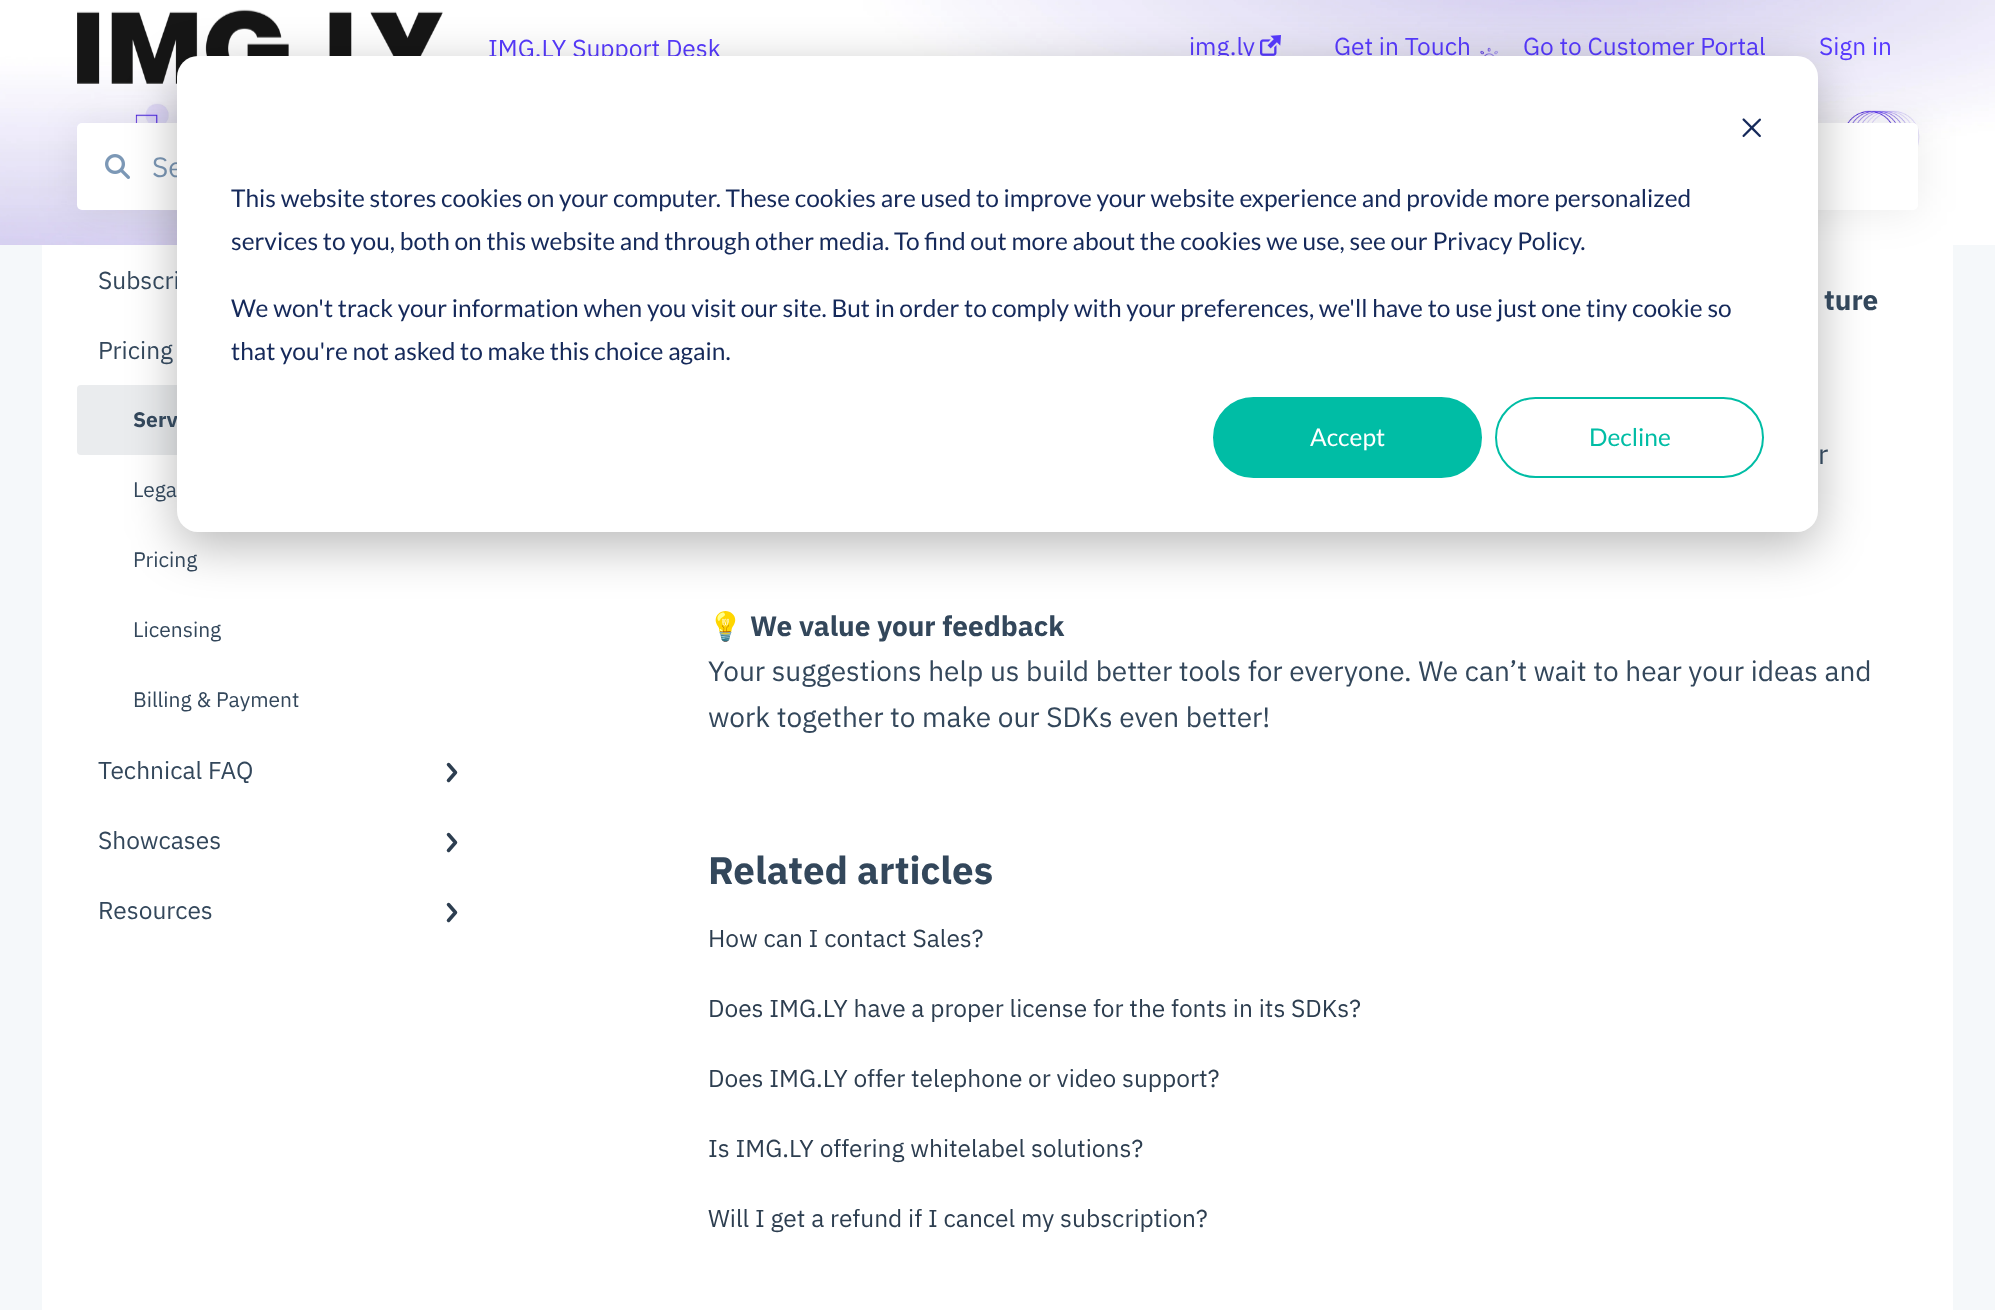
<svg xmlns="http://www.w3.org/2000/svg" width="1995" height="1310">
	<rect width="100%" height="100%" fill="#F5F8FA" />
	<image x="0" y="0" width="1995" height="245" href="assets/img3.png" />
	<rect x="42" y="245" width="1911" height="1065" fill="#FFFFFF" />
	<rect x="77" y="124" width="1841" height="88" rx="5" fill="#000000" fill-opacity="0.08" filter="blur(21px)" />
	<image x="77" y="9" width="366" height="75" href="assets/img1.png" />
	<g font-family="IBM Plex Sans" font-size="24.5" fill="#573AFF">
		<text x="488" y="57">IMG.LY Support Desk</text>
		<text x="1189" y="55">img.ly</text>
	</g>
	<image x="1260" y="35" width="21" height="21" href="assets/img2.png" />
	<g font-family="IBM Plex Sans" font-size="24.5" fill="#573AFF">
		<text x="1334" y="55">Get in Touch</text>
		<text x="1523" y="55">Go to Customer Portal</text>
		<text x="1819" y="55">Sign in</text>
	</g>
	<rect x="77" y="123" width="1841" height="87" rx="5" fill="#FFFFFF" />
	<image x="105" y="154" width="25" height="25" href="assets/img4.png" />
	<text x="152" y="177" font-family="IBM Plex Sans" font-size="28" fill="#7C98B6">Se</text>
	<rect x="77" y="385" width="420" height="70" rx="4" fill="#EAECEE" />
	<rect x="177" y="70" width="1641" height="476" rx="21" fill="#000000" fill-opacity="0.28" filter="blur(24.5px)" />
	<text x="98" y="289" font-family="IBM Plex Sans" font-size="24.5" fill="#33475B">Subscri</text>
	<text x="133" y="427" font-family="IBM Plex Sans" font-size="21" font-weight="700" fill="#33475B">Serv</text>
	<rect x="177" y="56" width="1641" height="476" rx="21" fill="#FFFFFF" />
	<image x="1742" y="118" width="19" height="20" href="assets/img5.png" />
	<g font-family="Lato" font-size="24.5" fill="#15295A">
		<text x="231" y="207">This website stores cookies on your computer. These cookies are used to improve your website experience and provide more personalized</text>
		<text x="231" y="250">services to you, both on this website and through other media. To find out more about the cookies we use, see our Privacy Policy.</text>
		<text x="231" y="317">We won't track your information when you visit our site. But in order to comply with your preferences, we'll have to use just one tiny cookie so</text>
		<text x="231" y="360">that you're not asked to make this choice again.</text>
	</g>
	<rect x="1214" y="398" width="267" height="79" rx="39.5" fill="#00BDA5" stroke="#00BDA5" stroke-width="2" />
	<text x="1310" y="446" font-family="Lato" font-size="24.5" fill="#FFFFFF">Accept</text>
	<rect x="1496" y="398" width="267" height="79" rx="39.5" fill="none" stroke="#00BDA5" stroke-width="2" />
	<text x="1589" y="446" font-family="Lato" font-size="24.5" fill="#00BDA5">Decline</text>
	<text x="98" y="359" font-family="IBM Plex Sans" font-size="24.5" fill="#33475B">Pricing</text>
	<g font-family="IBM Plex Sans" font-size="21" fill="#33475B">
		<text x="133" y="497">Lega</text>
		<text x="133" y="567">Pricing</text>
		<text x="133" y="637">Licensing</text>
		<text x="133" y="707">Billing &amp; Payment</text>
	</g>
	<text x="98" y="779" font-family="IBM Plex Sans" font-size="24.5" fill="#33475B">Technical FAQ</text>
	<path d="M448.5 764.5L455.5 772.5L448.5 780.5" fill="none" stroke="#2D3E50" stroke-width="3.5" stroke-linecap="round" stroke-linejoin="round" />
	<text x="98" y="849" font-family="IBM Plex Sans" font-size="24.5" fill="#33475B">Showcases</text>
	<path d="M448.5 834.5L455.5 842.5L448.5 850.5" fill="none" stroke="#2D3E50" stroke-width="3.5" stroke-linecap="round" stroke-linejoin="round" />
	<text x="98" y="919" font-family="IBM Plex Sans" font-size="24.5" fill="#33475B">Resources</text>
	<path d="M448.5 904.5L455.5 912.5L448.5 920.5" fill="none" stroke="#2D3E50" stroke-width="3.5" stroke-linecap="round" stroke-linejoin="round" />
	<text x="1824" y="310" font-family="IBM Plex Sans" font-size="28" font-weight="700" fill="#33475B">ture</text>
	<text x="1818" y="464" font-family="IBM Plex Sans" font-size="28" fill="#33475B">r</text>
	<text x="708" y="636" font-family="Noto Color Emoji" font-size="28" fill="#33475B">💡</text>
	<text x="750" y="636" font-family="IBM Plex Sans" font-size="28" font-weight="700" fill="#33475B">We value your feedback</text>
	<g font-family="IBM Plex Sans" font-size="28" fill="#33475B">
		<text x="708" y="681">Your suggestions help us build better tools for everyone. We can’t wait to hear your ideas and</text>
		<text x="708" y="727">work together to make our SDKs even better!</text>
	</g>
	<text x="708" y="884" font-family="IBM Plex Sans" font-size="38.5" font-weight="700" fill="#33475B">Related articles</text>
	<g font-family="IBM Plex Sans" font-size="24.5" fill="#2D3E50">
		<text x="708" y="947">How can I contact Sales?</text>
		<text x="708" y="1017">Does IMG.LY have a proper license for the fonts in its SDKs?</text>
		<text x="708" y="1087">Does IMG.LY offer telephone or video support?</text>
		<text x="708" y="1157">Is IMG.LY offering whitelabel solutions?</text>
		<text x="708" y="1227">Will I get a refund if I cancel my subscription?</text>
	</g>
</svg>
